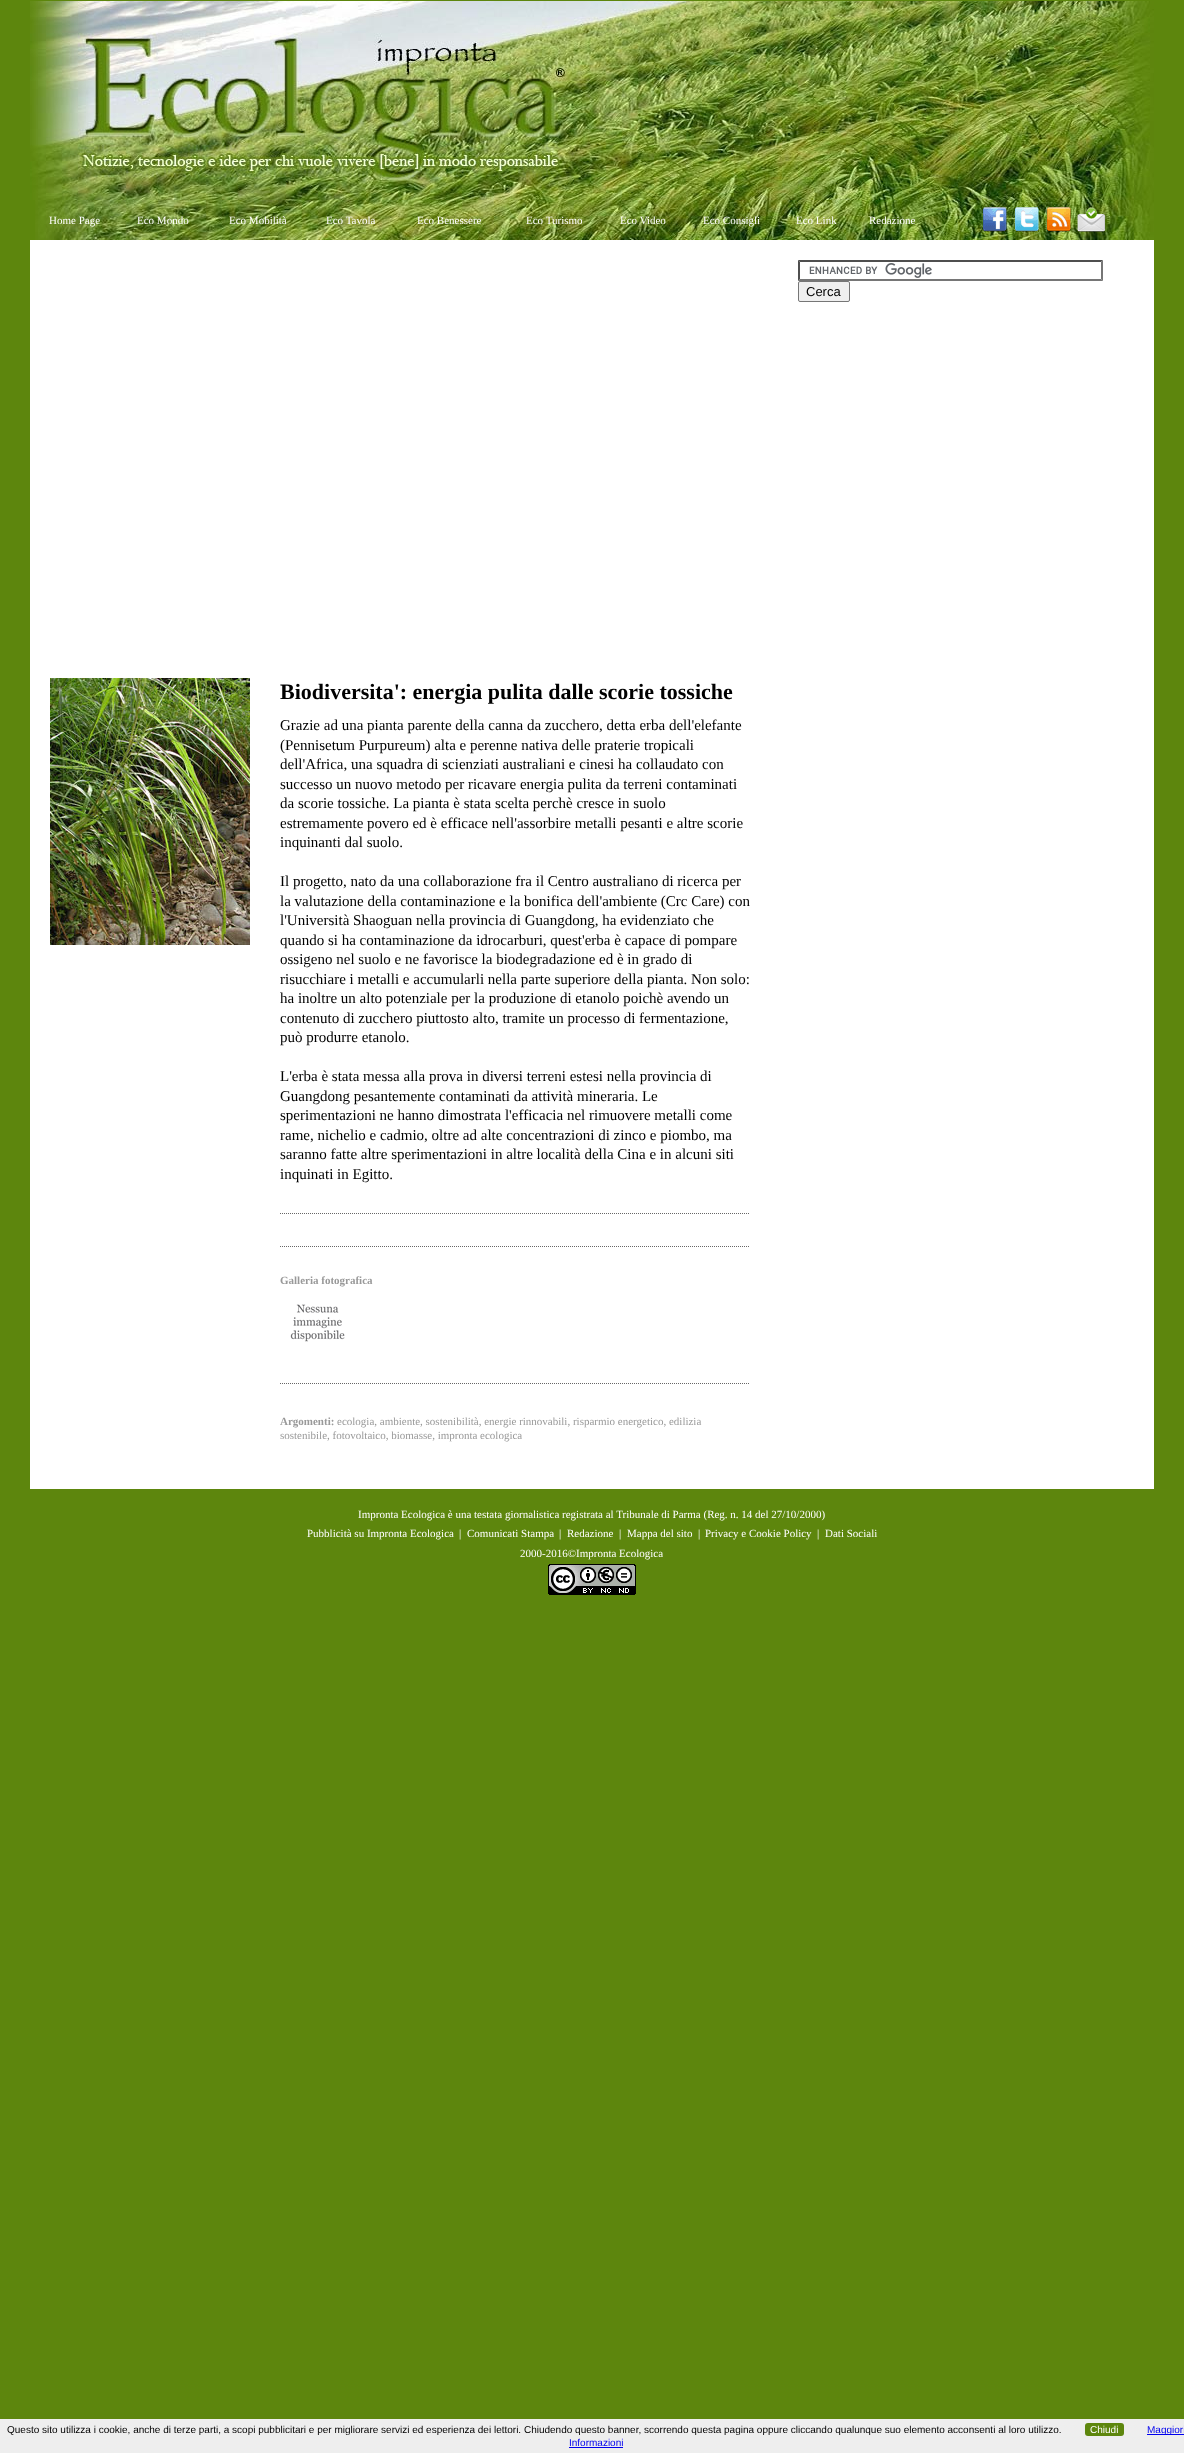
<svg xmlns="http://www.w3.org/2000/svg" width="1184" height="2453">
	<rect width="100%" height="100%" fill="#5D860D" />
	<image x="30" y="1" width="1124" height="199" href="assets/img1.png" />
	<image x="35" y="200" width="1119" height="40" href="assets/img2.png" />
	<g font-family="Liberation Serif" font-size="11" fill="#FFFFFF">
		<text x="49" y="224">Home Page</text>
		<text x="137" y="224">Eco Mondo</text>
		<text x="229" y="224">Eco Mobilità</text>
		<text x="326" y="224">Eco Tavola</text>
		<text x="417" y="224">Eco Benessere</text>
		<text x="526" y="224">Eco Turismo</text>
		<text x="620" y="224">Eco Video</text>
		<text x="703" y="224">Eco Consigli</text>
		<text x="796" y="224">Eco Link</text>
		<text x="869" y="224">Redazione</text>
	</g>
	<image x="982" y="207" width="27" height="26" href="assets/img3.png" />
	<image x="1014" y="207" width="25" height="25" href="assets/img4.png" />
	<image x="1046" y="207" width="25" height="26" href="assets/img5.png" />
	<image x="1077" y="207" width="29" height="25" href="assets/img6.png" />
	<rect x="30" y="240" width="1124" height="1249" fill="#FFFFFF" />
	<image x="809" y="263" width="123" height="15" href="assets/img7.png" />
	<path d="M798 260H1103L1101 262H800Z" fill="#4F4F4F" />
	<path d="M1103 260V281L1101 279V262Z" fill="#767676" />
	<path d="M1103 281H798L800 279H1101Z" fill="#767676" />
	<path d="M798 281V260L800 262V279Z" fill="#4F4F4F" />
	<rect x="798.5" y="281.5" width="51" height="20" rx="1.5" fill="#EFEFEF" stroke="#767676" />
	<text x="806" y="296" font-family="Liberation Sans" font-size="13" fill="#000000">Cerca</text>
	<image x="50" y="678" width="200" height="267" href="assets/img8.png" />
	<text x="280" y="699" font-family="Liberation Serif" font-size="22" font-weight="700" fill="#000000">Biodiversita': energia pulita dalle scorie tossiche</text>
	<g font-family="Liberation Serif" font-size="15" fill="#000000">
		<text x="280" y="730">Grazie ad una pianta parente della canna da zucchero, detta erba dell'elefante</text>
		<text x="280" y="750">(Pennisetum Purpureum) alta e perenne nativa delle praterie tropicali</text>
		<text x="280" y="769">dell'Africa, una squadra di scienziati australiani e cinesi ha collaudato con</text>
		<text x="280" y="789">successo un nuovo metodo per ricavare energia pulita da terreni contaminati</text>
		<text x="280" y="808">da scorie tossiche. La pianta è stata scelta perchè cresce in suolo</text>
		<text x="280" y="828">estremamente povero ed è efficace nell'assorbire metalli pesanti e altre scorie</text>
		<text x="280" y="847">inquinanti dal suolo.</text>
		<text x="280" y="886">Il progetto, nato da una collaborazione fra il Centro australiano di ricerca per</text>
		<text x="280" y="906">la valutazione della contaminazione e la bonifica dell'ambiente (Crc Care) con</text>
		<text x="280" y="925">l'Università Shaoguan nella provincia di Guangdong, ha evidenziato che</text>
		<text x="280" y="945">quando si ha contaminazione da idrocarburi, quest'erba è capace di pompare</text>
		<text x="280" y="964">ossigeno nel suolo e ne favorisce la biodegradazione ed è in grado di</text>
		<text x="280" y="984">risucchiare i metalli e accumularli nella parte superiore della pianta. Non solo:</text>
		<text x="280" y="1003">ha inoltre un alto potenziale per la produzione di etanolo poichè avendo un</text>
		<text x="280" y="1023">contenuto di zucchero piuttosto alto, tramite un processo di fermentazione,</text>
		<text x="280" y="1042">può produrre etanolo.</text>
		<text x="280" y="1081">L'erba è stata messa alla prova in diversi terreni estesi nella provincia di</text>
		<text x="280" y="1101">Guangdong pesantemente contaminati da attività mineraria. Le</text>
		<text x="280" y="1120">sperimentazioni ne hanno dimostrata l'efficacia nel rimuovere metalli come</text>
		<text x="280" y="1140">rame, nichelio e cadmio, oltre ad alte concentrazioni di zinco e piombo, ma</text>
		<text x="280" y="1159">saranno fatte altre sperimentazioni in altre località della Cina e in alcuni siti</text>
		<text x="280" y="1179">inquinati in Egitto.</text>
	</g>
	<path d="M280 1213.5H750" fill="none" stroke="#666666" stroke-dasharray="1 1" />
	<path d="M280 1246.5H750" fill="none" stroke="#666666" stroke-dasharray="1 1" />
	<text x="280" y="1284" font-family="Liberation Serif" font-size="11" font-weight="700" fill="#999999">Galleria fotografica</text>
	<image x="290" y="1304" width="55" height="38" href="assets/img9.png" />
	<path d="M280 1383.5H750" fill="none" stroke="#666666" stroke-dasharray="1 1" />
	<text x="280" y="1425" font-family="Liberation Serif" font-size="11" font-weight="700" fill="#999999">Argomenti:</text>
	<g font-family="Liberation Serif" font-size="11" fill="#999999">
		<text x="337" y="1425">ecologia, ambiente, sostenibilità, energie rinnovabili, risparmio energetico, edilizia</text>
		<text x="280" y="1439">sostenibile, fotovoltaico, biomasse, impronta ecologica</text>
	</g>
	<g font-family="Liberation Serif" font-size="11" fill="#FFFFFF">
		<text x="358" y="1518">Impronta Ecologica è una testata giornalistica registrata al Tribunale di Parma (Reg. n. 14 del 27/10/2000)</text>
		<text x="307" y="1537">Pubblicità su Impronta Ecologica</text>
		<text x="459" y="1537">|</text>
		<text x="467" y="1537">Comunicati Stampa</text>
		<text x="559" y="1537">|</text>
		<text x="567" y="1537">Redazione</text>
		<text x="619" y="1537">|</text>
		<text x="627" y="1537">Mappa del sito</text>
		<text x="698" y="1537">|</text>
		<text x="705" y="1537">Privacy e Cookie Policy</text>
		<text x="817" y="1537">|</text>
		<text x="825" y="1537">Dati Sociali</text>
		<text x="520" y="1557">2000-2016©Impronta Ecologica</text>
	</g>
	<image x="548" y="1564" width="88" height="31" href="assets/img10.png" />
	<rect x="0" y="2419" width="1184" height="34" fill="#EEEEEE" />
	<text x="7" y="2433" font-family="Liberation Sans" font-size="10" fill="#000000">Questo sito utilizza i cookie, anche di terze parti, a scopi pubblicitari e per migliorare servizi ed esperienza dei lettori. Chiudendo questo banner, scorrendo questa pagina oppure cliccando qualunque suo elemento acconsenti al loro utilizzo.</text>
	<rect x="1085" y="2423" width="39" height="13" rx="3" fill="#5D860D" />
	<text x="1090" y="2433" font-family="Liberation Sans" font-size="10" fill="#FFFFFF">Chiudi</text>
	<rect x="1147" y="2434" width="37" height="1" fill="#0000EE" />
	<g font-family="Liberation Sans" font-size="10" fill="#0000EE">
		<text x="1147" y="2433">Maggiori</text>
		<text x="569" y="2446">Informazioni</text>
	</g>
	<rect x="569" y="2447" width="54" height="1" fill="#0000EE" />
</svg>
